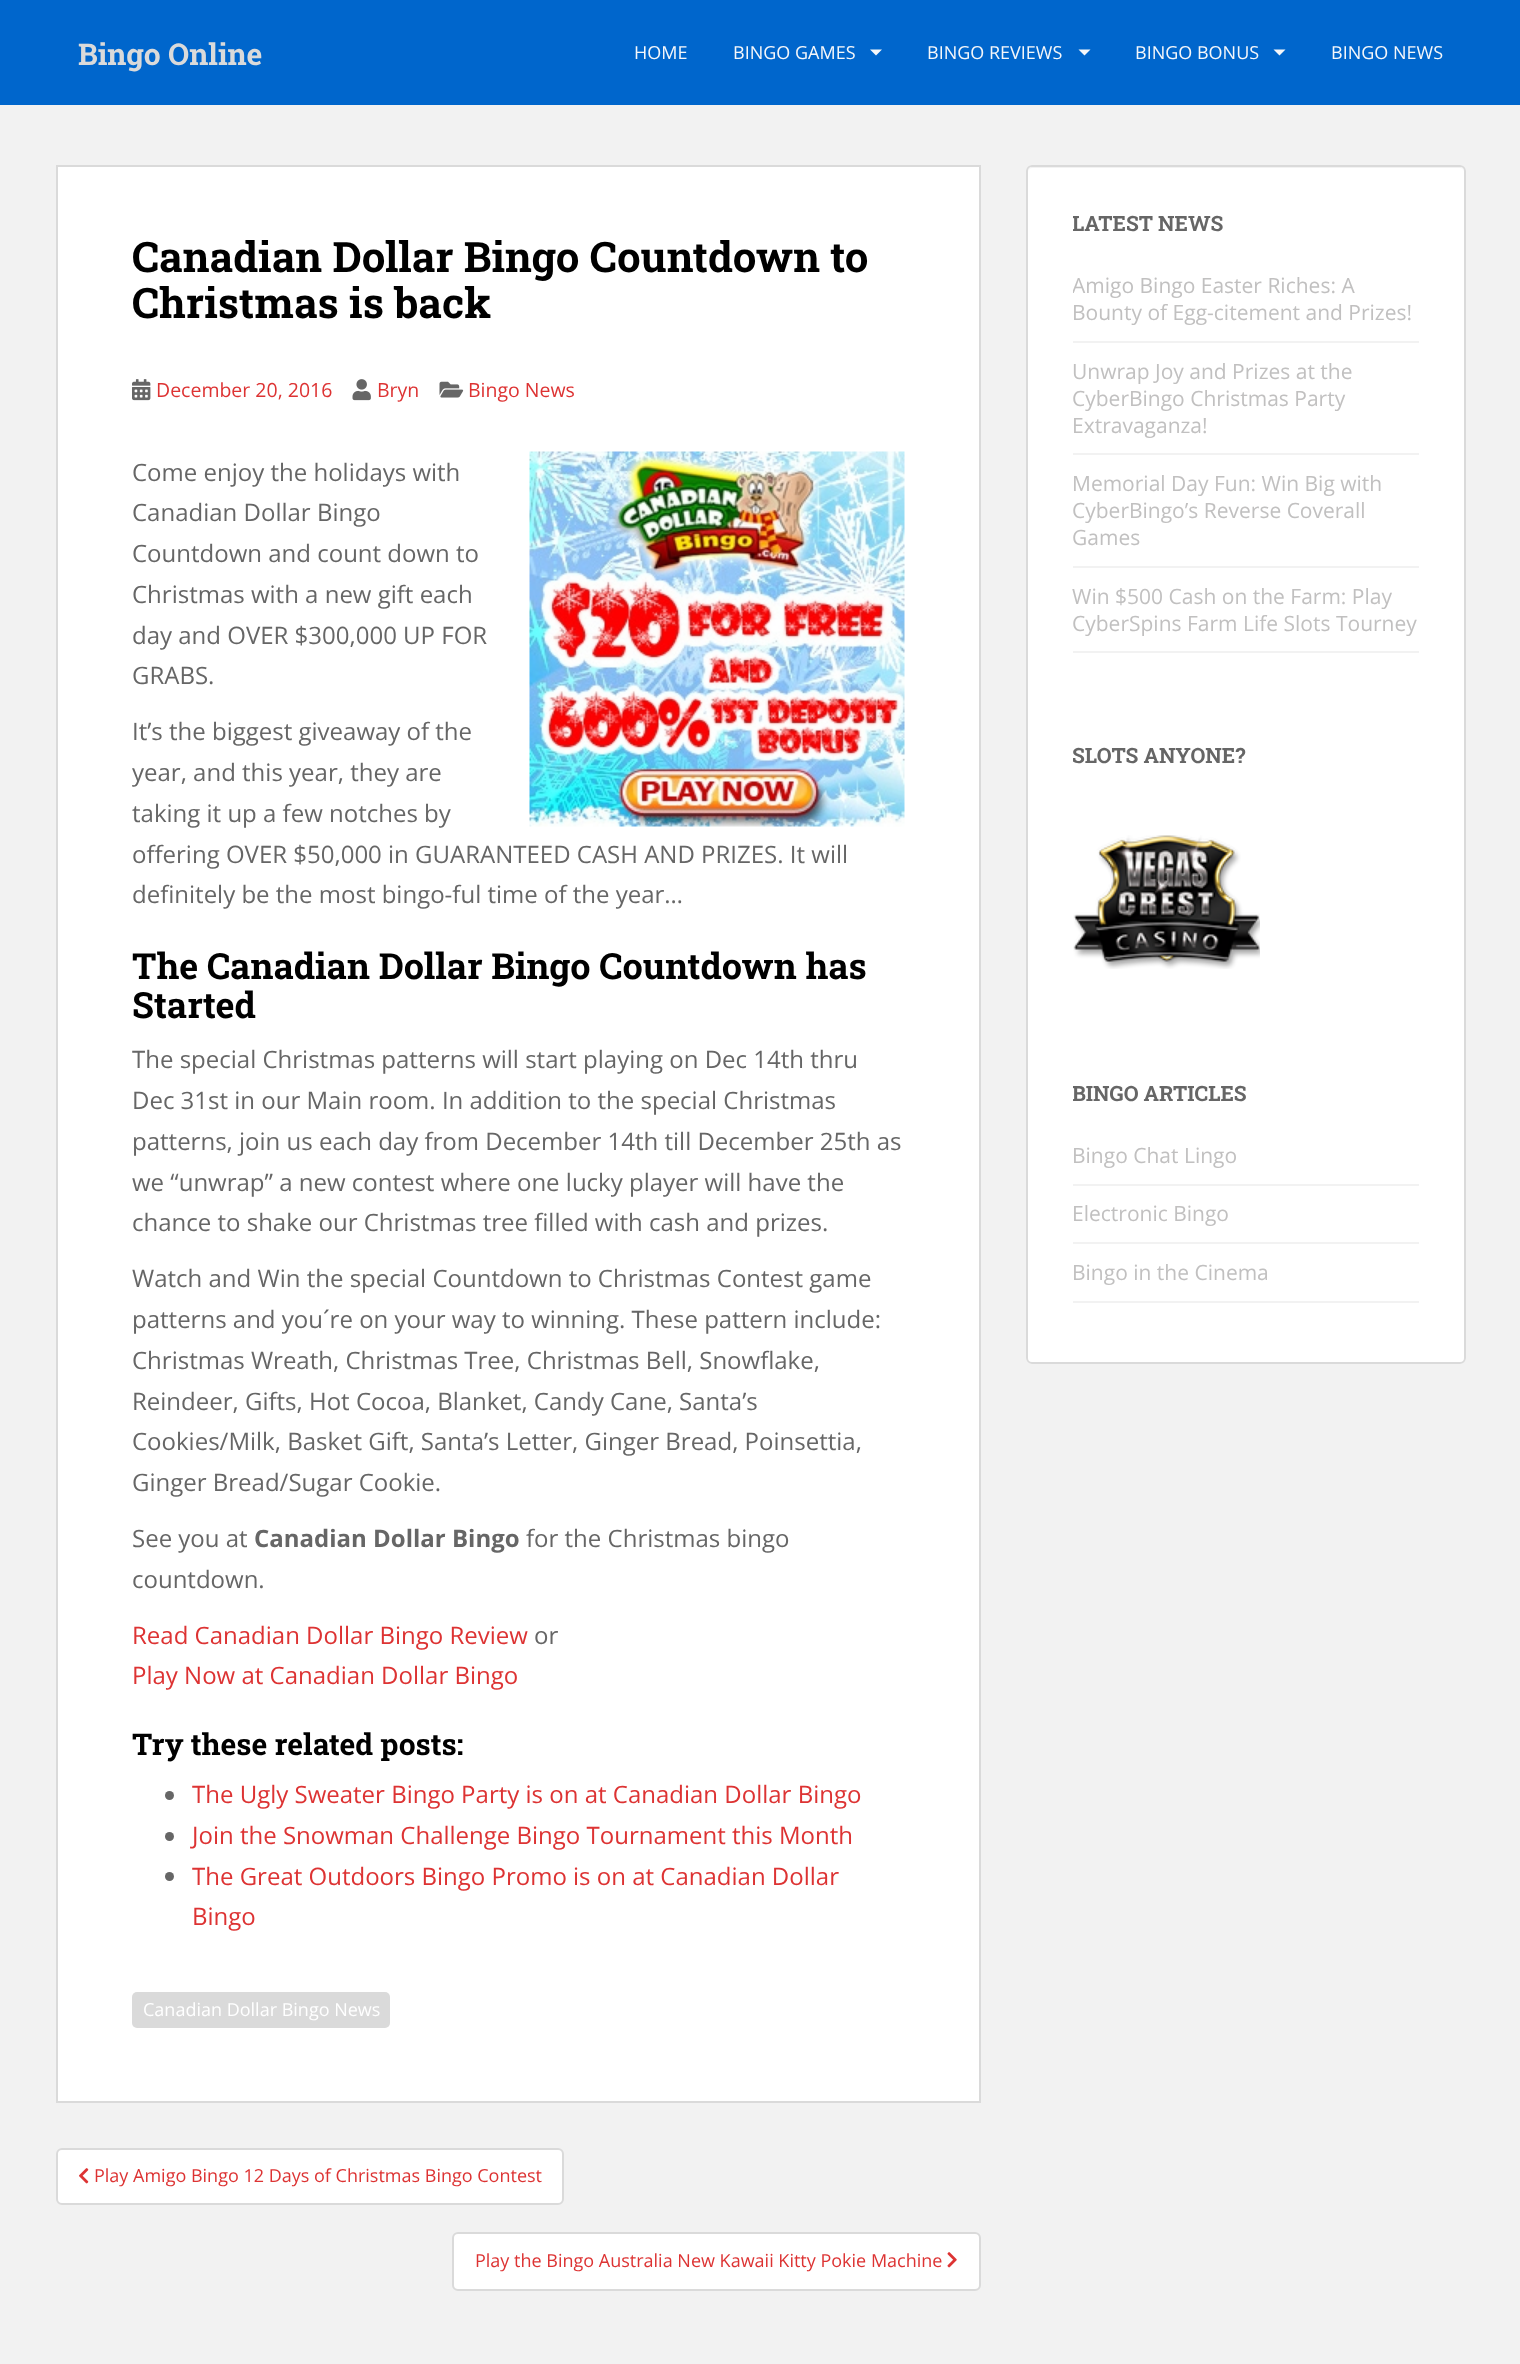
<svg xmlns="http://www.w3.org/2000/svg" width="1520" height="2364">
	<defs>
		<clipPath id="clip1"><rect x="1073" y="212" width="346" height="456" /></clipPath>
		<clipPath id="clip2"><rect x="1073" y="1082" width="346" height="235" /></clipPath>
	</defs>
	<rect width="100%" height="100%" fill="#F2F2F2" />
	<rect x="0" y="0" width="1520" height="105" fill="#0066CC" />
	<text x="78" y="65" font-family="Roboto Slab" font-size="30" font-weight="700" fill="#DADADA">Bingo Online</text>
	<g font-family="Open Sans" font-size="18" fill="#F5F7FA">
		<text x="634" y="59">HOME</text>
		<text x="733" y="59">BINGO GAMES</text>
	</g>
	<path d="M870 49.5H882L876 55.5Z" fill="#F5F7FA" />
	<text x="927" y="59" font-family="Open Sans" font-size="18" fill="#F5F7FA">BINGO REVIEWS</text>
	<path d="M1078.5 49.5H1090.5L1084.5 55.5Z" fill="#F5F7FA" />
	<text x="1135" y="59" font-family="Open Sans" font-size="18" fill="#F5F7FA">BINGO BONUS</text>
	<path d="M1273.5 49.5H1285.5L1279.5 55.5Z" fill="#F5F7FA" />
	<text x="1331" y="59" font-family="Open Sans" font-size="18" fill="#F5F7FA">BINGO NEWS</text>
	<rect x="57" y="166" width="923" height="1936" fill="#FFFFFF" stroke="#DADADA" stroke-width="2" />
	<g font-family="Roboto Slab" font-size="42" font-weight="700" fill="#000000">
		<text x="132" y="272">Canadian Dollar Bingo Countdown to</text>
		<text x="132" y="318">Christmas is back</text>
	</g>
	<image x="132" y="379" width="19" height="22" href="assets/img1.png" />
	<text x="156" y="397" font-family="Open Sans" font-size="19.5" fill="#DD3333">December 20, 2016</text>
	<image x="352" y="379" width="19" height="22" href="assets/img2.png" />
	<text x="377" y="397" font-family="Open Sans" font-size="19.5" fill="#DD3333">Bryn</text>
	<image x="439" y="381" width="25" height="17" href="assets/img3.png" />
	<text x="468" y="397" font-family="Open Sans" font-size="19.5" fill="#DD3333">Bingo News</text>
	<text x="132" y="481" font-family="Open Sans" font-size="24" fill="#666666">Come enjoy the holidays with</text>
	<image x="529" y="451" width="376" height="376" href="assets/img4.png" />
	<g font-family="Open Sans" font-size="24" fill="#666666">
		<text x="132" y="521">Canadian Dollar Bingo</text>
		<text x="132" y="562">Countdown and count down to</text>
		<text x="132" y="603">Christmas with a new gift each</text>
		<text x="132" y="644">day and OVER $300,000 UP FOR</text>
		<text x="132" y="684">GRABS.</text>
		<text x="132" y="740">It’s the biggest giveaway of the</text>
		<text x="132" y="781">year, and this year, they are</text>
		<text x="132" y="822">taking it up a few notches by</text>
		<text x="132" y="863">offering OVER $50,000 in GUARANTEED CASH AND PRIZES. It will</text>
		<text x="132" y="903">definitely be the most bingo-ful time of the year…</text>
	</g>
	<g font-family="Roboto Slab" font-size="36" font-weight="700" fill="#000000">
		<text x="132" y="979">The Canadian Dollar Bingo Countdown has</text>
		<text x="132" y="1018">Started</text>
	</g>
	<g font-family="Open Sans" font-size="24" fill="#666666">
		<text x="132" y="1068">The special Christmas patterns will start playing on Dec 14th thru</text>
		<text x="132" y="1109">Dec 31st in our Main room. In addition to the special Christmas</text>
		<text x="132" y="1150">patterns, join us each day from December 14th till December 25th as</text>
		<text x="132" y="1191">we “unwrap” a new contest where one lucky player will have the</text>
		<text x="132" y="1231">chance to shake our Christmas tree filled with cash and prizes.</text>
		<text x="132" y="1287">Watch and Win the special Countdown to Christmas Contest game</text>
		<text x="132" y="1328">patterns and you´re on your way to winning. These pattern include:</text>
		<text x="132" y="1369">Christmas Wreath, Christmas Tree, Christmas Bell, Snowflake,</text>
		<text x="132" y="1410">Reindeer, Gifts, Hot Cocoa, Blanket, Candy Cane, Santa’s</text>
		<text x="132" y="1450">Cookies/Milk, Basket Gift, Santa’s Letter, Ginger Bread, Poinsettia,</text>
		<text x="132" y="1491">Ginger Bread/Sugar Cookie.</text>
		<text x="132" y="1547">See you at</text>
	</g>
	<text x="254" y="1547" font-family="Open Sans" font-size="24" font-weight="700" fill="#666666">Canadian Dollar Bingo</text>
	<g font-family="Open Sans" font-size="24" fill="#666666">
		<text x="526" y="1547">for the Christmas bingo</text>
		<text x="132" y="1588">countdown.</text>
	</g>
	<text x="132" y="1644" font-family="Open Sans" font-size="24" fill="#DD3333">Read Canadian Dollar Bingo Review</text>
	<text x="534" y="1644" font-family="Open Sans" font-size="24" fill="#666666">or</text>
	<text x="132" y="1684" font-family="Open Sans" font-size="24" fill="#DD3333">Play Now at Canadian Dollar Bingo</text>
	<text x="132" y="1755" font-family="Roboto Slab" font-size="30" font-weight="700" fill="#000000">Try these related posts:</text>
	<circle cx="169.5" cy="1795.5" r="4.5" fill="#666666" />
	<text x="192" y="1803" font-family="Open Sans" font-size="24" fill="#DD3333">The Ugly Sweater Bingo Party is on at Canadian Dollar Bingo</text>
	<circle cx="169.5" cy="1836.5" r="4.5" fill="#666666" />
	<text x="192" y="1844" font-family="Open Sans" font-size="24" fill="#DD3333">Join the Snowman Challenge Bingo Tournament this Month</text>
	<circle cx="169.5" cy="1876.5" r="4.5" fill="#666666" />
	<g font-family="Open Sans" font-size="24" fill="#DD3333">
		<text x="192" y="1885">The Great Outdoors Bingo Promo is on at Canadian Dollar</text>
		<text x="192" y="1925">Bingo</text>
	</g>
	<rect x="132" y="1992" width="258" height="36" rx="5" fill="#DADADA" />
	<text x="143" y="2016" font-family="Open Sans" font-size="18" fill="#FFFFFF">Canadian Dollar Bingo News</text>
	<rect x="57" y="2149" width="506" height="55" rx="5" fill="#FFFFFF" stroke="#DADADA" stroke-width="2" />
	<image x="79" y="2168" width="10" height="16" href="assets/img5.png" />
	<text x="94" y="2182" font-family="Open Sans" font-size="18" fill="#DD3333">Play Amigo Bingo 12 Days of Christmas Bingo Contest</text>
	<rect x="453" y="2233" width="527" height="57" rx="5" fill="#FFFFFF" stroke="#DADADA" stroke-width="2" />
	<text x="475" y="2267" font-family="Open Sans" font-size="18" fill="#DD3333">Play the Bingo Australia New Kawaii Kitty Pokie Machine</text>
	<image x="947" y="2252" width="10" height="16" href="assets/img6.png" />
	<rect x="1026" y="165" width="440" height="1199" rx="6" fill="#FFFFFF" />
	<path d="M1032 168H1460C1462 168 1464 170 1464 172C1464 169 1462 167 1459 167H1033C1030 167 1028 169 1028 172C1028 170 1030 168 1032 168Z" fill="#F2F2F2" />
	<rect x="1027" y="166" width="438" height="1197" rx="5" fill="none" stroke="#DADADA" stroke-width="2" />
	<g clip-path="url(#clip1)">
		<text x="1072" y="231" font-family="Roboto Slab" font-size="21" font-weight="700" fill="#666666">LATEST NEWS</text>
	</g>
	<rect x="1073" y="341" width="346" height="2" fill="#F2F2F2" />
	<g clip-path="url(#clip1)">
		<text x="1072" y="293" font-family="Open Sans" font-size="21" fill="#C1C0C0">Amigo Bingo Easter Riches: A</text>
	</g>
	<text x="1072" y="320" font-family="Open Sans" font-size="21" fill="#C1C0C0">Bounty of Egg-citement and Prizes!</text>
	<rect x="1073" y="453" width="346" height="2" fill="#F2F2F2" />
	<g font-family="Open Sans" font-size="21" fill="#C1C0C0">
		<text x="1072" y="379">Unwrap Joy and Prizes at the</text>
		<text x="1072" y="406">CyberBingo Christmas Party</text>
		<text x="1072" y="433">Extravaganza!</text>
	</g>
	<rect x="1073" y="566" width="346" height="2" fill="#F2F2F2" />
	<g font-family="Open Sans" font-size="21" fill="#C1C0C0">
		<text x="1072" y="491">Memorial Day Fun: Win Big with</text>
		<text x="1072" y="518">CyberBingo’s Reverse Coverall</text>
		<text x="1072" y="545">Games</text>
	</g>
	<rect x="1073" y="651" width="346" height="2" fill="#F2F2F2" />
	<g font-family="Open Sans" font-size="21" fill="#C1C0C0">
		<text x="1072" y="604">Win $500 Cash on the Farm: Play</text>
		<text x="1072" y="631">CyberSpins Farm Life Slots Tourney</text>
	</g>
	<text x="1072" y="763" font-family="Roboto Slab" font-size="21" font-weight="700" fill="#666666">SLOTS ANYONE?</text>
	<image x="1073" y="835" width="187" height="134" href="assets/img7.png" />
	<g clip-path="url(#clip2)">
		<text x="1072" y="1101" font-family="Roboto Slab" font-size="21" font-weight="700" fill="#666666">BINGO ARTICLES</text>
	</g>
	<rect x="1073" y="1184" width="346" height="2" fill="#F2F2F2" />
	<text x="1072" y="1163" font-family="Open Sans" font-size="21" fill="#C1C0C0">Bingo Chat Lingo</text>
	<rect x="1073" y="1242" width="346" height="2" fill="#F2F2F2" />
	<text x="1072" y="1221" font-family="Open Sans" font-size="21" fill="#C1C0C0">Electronic Bingo</text>
	<rect x="1073" y="1301" width="346" height="2" fill="#F2F2F2" />
	<text x="1072" y="1280" font-family="Open Sans" font-size="21" fill="#C1C0C0">Bingo in the Cinema</text>
</svg>
